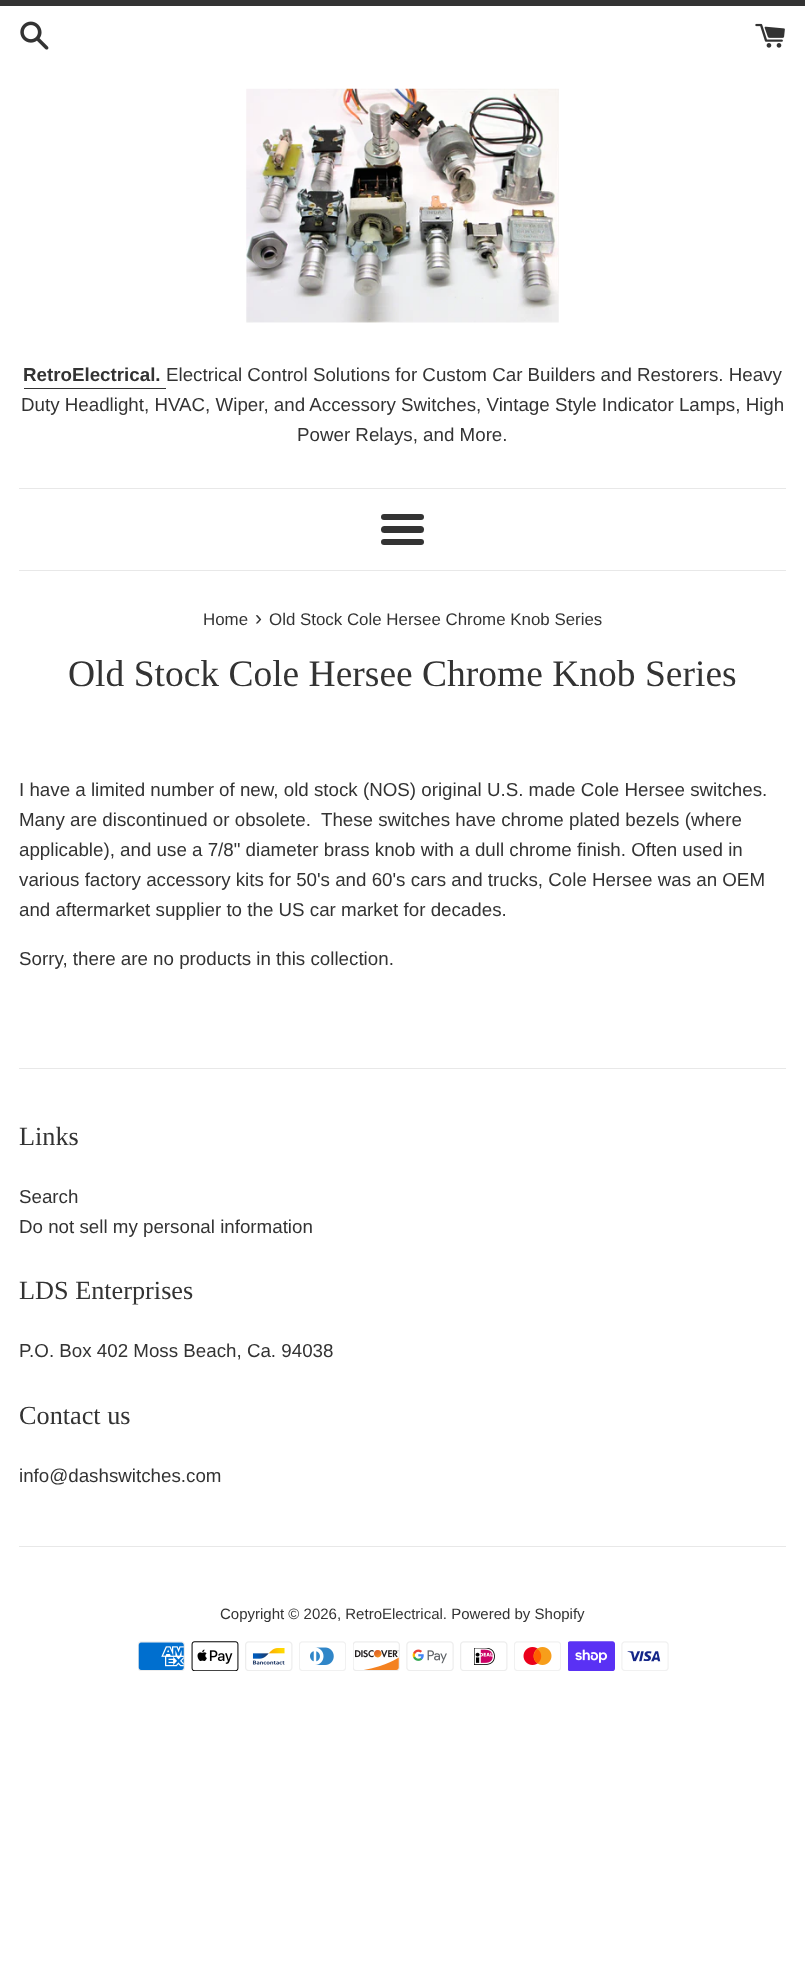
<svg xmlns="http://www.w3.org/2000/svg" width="805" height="1975">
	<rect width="100%" height="100%" fill="#FFFFFF" />
	<rect x="0" y="0" width="805" height="6" fill="#333333" />
	<image x="20" y="21" width="29" height="29" href="assets/img1.png" />
	<image x="755" y="23" width="30" height="25" href="assets/img2.png" />
	<image x="246" y="88" width="313" height="235" href="assets/img3.png" />
	<text x="23" y="381" font-family="Liberation Sans" font-size="18.75" font-weight="700" fill="#333333">RetroElectrical.</text>
	<rect x="24" y="388" width="142" height="1" fill="#333333" />
	<g font-family="Liberation Sans" font-size="18.75" fill="#333333">
		<text x="166" y="381">Electrical Control Solutions for Custom Car Builders and Restorers. Heavy</text>
		<text x="21" y="411">Duty Headlight, HVAC, Wiper, and Accessory Switches, Vintage Style Indicator Lamps, High</text>
		<text x="297" y="441">Power Relays, and More.</text>
	</g>
	<rect x="19" y="488" width="767" height="1" fill="#E8E8E8" />
	<rect x="381" y="514" width="43" height="6" rx="3" fill="#333333" />
	<rect x="381" y="526" width="43" height="7" rx="3.5" fill="#333333" />
	<rect x="381" y="539" width="43" height="6" rx="3" fill="#333333" />
	<rect x="19" y="570" width="767" height="1" fill="#E8E8E8" />
	<text x="203" y="625" font-family="Liberation Sans" font-size="16.9" fill="#333333">Home</text>
	<text x="255" y="625" font-family="Liberation Sans" font-size="21" fill="#333333">›</text>
	<text x="269" y="625" font-family="Liberation Sans" font-size="16.9" fill="#333333">Old Stock Cole Hersee Chrome Knob Series</text>
	<text x="68" y="686" font-family="Liberation Serif" font-size="37.5" fill="#333333">Old Stock Cole Hersee Chrome Knob Series</text>
	<g font-family="Liberation Sans" font-size="18.75" fill="#333333">
		<text x="19" y="796">I have a limited number of new, old stock (NOS) original U.S. made Cole Hersee switches.</text>
		<text x="19" y="826" xml:space="preserve">Many are discontinued or obsolete.  These switches have chrome plated bezels (where</text>
		<text x="19" y="856">applicable), and use a 7/8" diameter brass knob with a dull chrome finish. Often used in</text>
		<text x="19" y="886">various factory accessory kits for 50's and 60's cars and trucks, Cole Hersee was an OEM</text>
		<text x="19" y="916">and aftermarket supplier to the US car market for decades.</text>
		<text x="19" y="965">Sorry, there are no products in this collection.</text>
	</g>
	<rect x="19" y="1068" width="767" height="1" fill="#E8E8E8" />
	<text x="19" y="1145" font-family="Liberation Serif" font-size="26.25" fill="#333333">Links</text>
	<g font-family="Liberation Sans" font-size="18.75" fill="#333333">
		<text x="19" y="1203">Search</text>
		<text x="19" y="1233">Do not sell my personal information</text>
	</g>
	<text x="19" y="1299" font-family="Liberation Serif" font-size="26.25" fill="#333333">LDS Enterprises</text>
	<text x="19" y="1357" font-family="Liberation Sans" font-size="18.75" fill="#333333">P.O. Box 402 Moss Beach, Ca. 94038</text>
	<text x="19" y="1424" font-family="Liberation Serif" font-size="26.25" fill="#333333">Contact us</text>
	<text x="19" y="1482" font-family="Liberation Sans" font-size="18.75" fill="#333333">info@dashswitches.com</text>
	<rect x="19" y="1546" width="767" height="1" fill="#E8E8E8" />
	<text x="220" y="1619" font-family="Liberation Sans" font-size="15" fill="#333333">Copyright © 2026, RetroElectrical. Powered by Shopify</text>
	<image x="138" y="1641" width="47" height="30" href="assets/img4.png" />
	<image x="191" y="1641" width="48" height="30" href="assets/img5.png" />
	<image x="245" y="1641" width="48" height="30" href="assets/img6.png" />
	<image x="299" y="1641" width="47" height="30" href="assets/img7.png" />
	<image x="353" y="1641" width="47" height="30" href="assets/img8.png" />
	<image x="406" y="1641" width="48" height="30" href="assets/img9.png" />
	<image x="460" y="1641" width="48" height="30" href="assets/img10.png" />
	<image x="514" y="1641" width="47" height="30" href="assets/img11.png" />
	<image x="568" y="1641" width="47" height="30" href="assets/img12.png" />
	<image x="621" y="1641" width="48" height="30" href="assets/img13.png" />
</svg>
